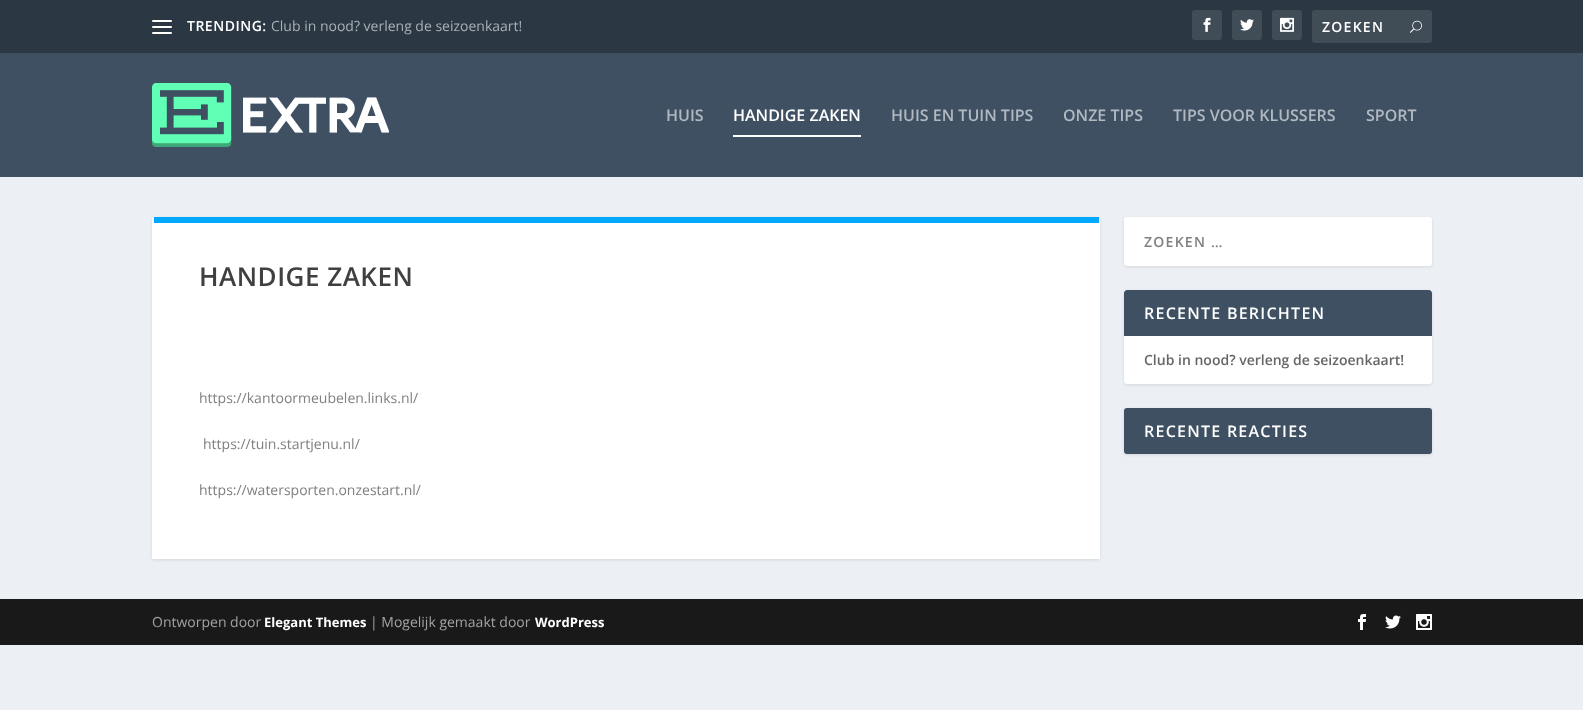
<svg xmlns="http://www.w3.org/2000/svg" width="1583" height="710">
	<rect width="100%" height="100%" fill="#ECF0F5" />
	<rect x="0" y="0" width="1583" height="53" fill="#2B3843" />
	<rect x="152" y="20" width="20" height="2" rx="1" fill="#FFFFFF" />
	<rect x="152" y="26" width="20" height="2" rx="1" fill="#FFFFFF" />
	<rect x="152" y="32" width="20" height="2" rx="1" fill="#FFFFFF" />
	<text x="187" y="31" font-family="Open Sans" font-size="14" font-weight="600" letter-spacing="0.5" fill="#FFFFFF">TRENDING:</text>
	<text x="271" y="31" font-family="Open Sans" font-size="14" fill="#AAAFB4">Club in nood? verleng de seizoenkaart!</text>
	<rect x="1192" y="10" width="30" height="30" rx="3" fill="#404C56" />
	<image x="1203" y="17" width="8" height="15" href="assets/img1.png" />
	<rect x="1232" y="10" width="30" height="30" rx="3" fill="#404C56" />
	<image x="1240" y="19" width="14" height="12" href="assets/img2.png" />
	<rect x="1272" y="10" width="30" height="30" rx="3" fill="#404C56" />
	<image x="1280" y="17" width="14" height="15" href="assets/img3.png" />
	<rect x="1312" y="10" width="120" height="33" rx="3" fill="#404C56" />
	<text x="1322" y="32" font-family="Open Sans" font-size="14" font-weight="600" letter-spacing="1.25" fill="#FFFFFF">ZOEKEN</text>
	<image x="1410" y="20" width="12" height="13" href="assets/img4.png" />
	<rect x="0" y="53" width="1583" height="124" fill="#3E5062" />
	<image x="152" y="83" width="237" height="64" href="assets/img5.png" />
	<text x="666" y="121" font-family="Open Sans" font-size="16" font-weight="600" fill="#B2B9C0">HUIS</text>
	<text x="733" y="121" font-family="Open Sans" font-size="16" font-weight="600" fill="#FFFFFF">HANDIGE ZAKEN</text>
	<rect x="733" y="135" width="128" height="2" fill="#FFFFFF" />
	<g font-family="Open Sans" font-size="16" font-weight="600" fill="#B2B9C0">
		<text x="891" y="121">HUIS EN TUIN TIPS</text>
		<text x="1063" y="121">ONZE TIPS</text>
		<text x="1173" y="121">TIPS VOOR KLUSSERS</text>
		<text x="1366" y="121">SPORT</text>
	</g>
	<rect x="152" y="218" width="948" height="342" rx="3" fill="#000000" fill-opacity="0.1" filter="blur(1.5px)" />
	<rect x="152" y="217" width="948" height="342" rx="3" fill="#FFFFFF" />
	<rect x="154" y="217" width="945" height="6" fill="#00A8FF" />
	<text x="199" y="286" font-family="Open Sans" font-size="26" font-weight="600" letter-spacing="0.5" fill="#404040">HANDIGE ZAKEN</text>
	<rect x="152" y="556" width="948" height="3" fill="#FFFFFF" />
	<g font-family="Open Sans" font-size="14" fill="#808080">
		<text x="199" y="403">https://kantoormeubelen.links.nl/</text>
		<text x="203" y="449">https://tuin.startjenu.nl/</text>
		<text x="199" y="495">https://watersporten.onzestart.nl/</text>
	</g>
	<rect x="1124" y="218" width="308" height="49" rx="3" fill="#000000" fill-opacity="0.1" filter="blur(1.5px)" />
	<rect x="1124" y="217" width="308" height="49" rx="3" fill="#FFFFFF" />
	<text x="1144" y="247" font-family="Open Sans" font-size="14" font-weight="600" letter-spacing="1.25" fill="#808080">ZOEKEN …</text>
	<rect x="1124" y="291" width="308" height="94" rx="3" fill="#000000" fill-opacity="0.1" filter="blur(1.5px)" />
	<rect x="1124" y="290" width="308" height="94" rx="3" fill="#FFFFFF" />
	<path d="M1127 290H1429C1430.5 290 1432 291.5 1432 293V336H1124V293C1124 291.5 1125.5 290 1127 290Z" fill="#3E5062" />
	<text x="1144" y="319" font-family="Open Sans" font-size="16" font-weight="600" letter-spacing="1.25" fill="#FFFFFF">RECENTE BERICHTEN</text>
	<text x="1144" y="365" font-family="Open Sans" font-size="14" font-weight="600" fill="#666666">Club in nood? verleng de seizoenkaart!</text>
	<rect x="1124" y="409" width="308" height="46" rx="3" fill="#000000" fill-opacity="0.1" filter="blur(1.5px)" />
	<rect x="1124" y="408" width="308" height="46" rx="3" fill="#3E5062" />
	<text x="1144" y="437" font-family="Open Sans" font-size="16" font-weight="600" letter-spacing="1.25" fill="#FFFFFF">RECENTE REACTIES</text>
	<rect x="0" y="599" width="1583" height="46" fill="#191919" />
	<text x="152" y="627" font-family="Open Sans" font-size="14" fill="#A3A3A3">Ontworpen door</text>
	<text x="264" y="627" font-family="Open Sans" font-size="13" font-weight="700" fill="#FFFFFF">Elegant Themes</text>
	<text x="370" y="627" font-family="Open Sans" font-size="14" fill="#A3A3A3">| Mogelijk gemaakt door</text>
	<text x="535" y="627" font-family="Open Sans" font-size="13" font-weight="700" fill="#FFFFFF">WordPress</text>
	<image x="1358" y="614" width="8" height="16" href="assets/img6.png" />
	<image x="1385" y="615" width="16" height="14" href="assets/img7.png" />
	<image x="1416" y="614" width="16" height="16" href="assets/img8.png" />
</svg>
